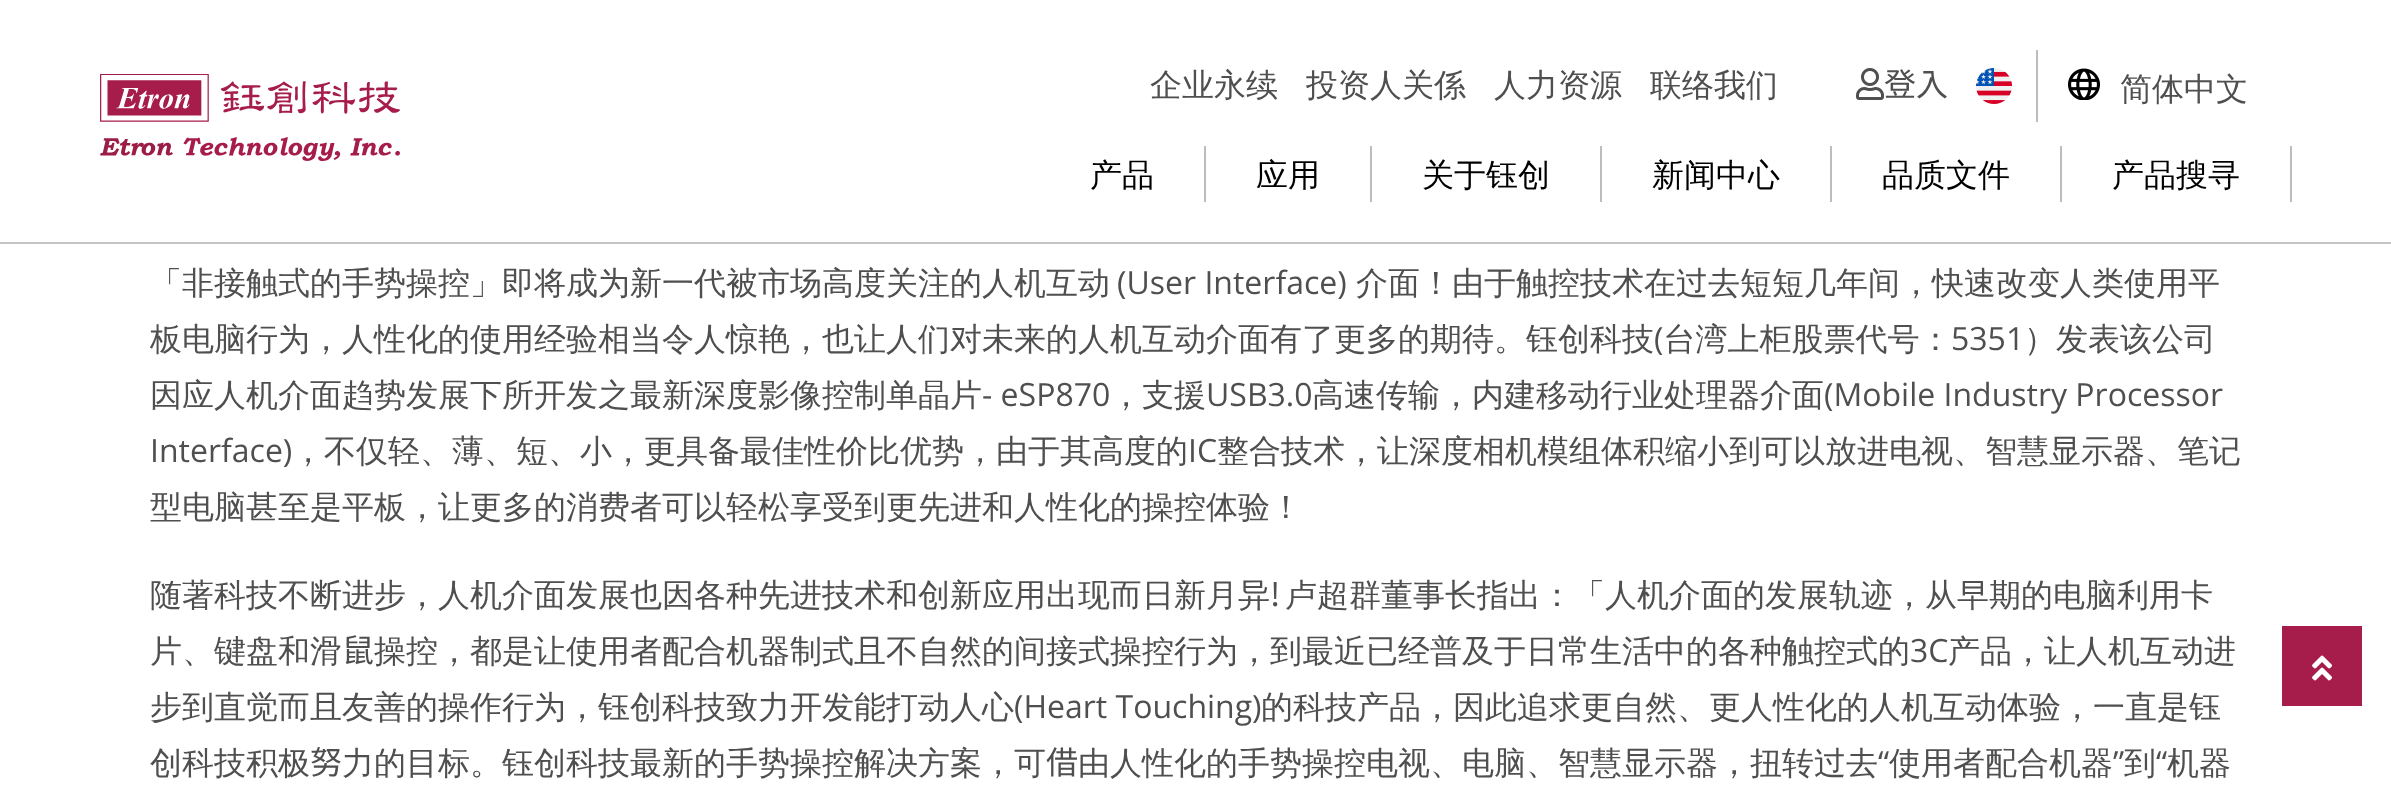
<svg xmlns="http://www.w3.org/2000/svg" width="2391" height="805">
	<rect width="100%" height="100%" fill="#FFFFFF" />
	<rect x="0" y="242" width="2391" height="2" fill="#C4C4C4" />
	<image x="100" y="74" width="300" height="87" href="assets/img1.png" />
	<g font-family="WenQuanYi Zen Hei" font-size="32" font-weight="500" fill="#4F4F4F">
		<text x="1150" y="96">企业永续</text>
		<text x="1306" y="96">投资人关係</text>
		<text x="1494" y="96">人力资源</text>
		<text x="1650" y="96">联络我们</text>
	</g>
	<image x="1856" y="68" width="28" height="32" href="assets/img2.png" />
	<text x="1884" y="96" font-family="Noto Sans TC" font-size="32" fill="#4F4F4F">登入</text>
	<image x="1976" y="68" width="36" height="36" href="assets/img3.png" />
	<rect x="2036" y="50" width="2" height="72" fill="#BDBDBD" />
	<image x="2068" y="68" width="32" height="32" href="assets/img4.png" />
	<text x="2120" y="100" font-family="WenQuanYi Zen Hei" font-size="32" font-weight="500" fill="#4F4F4F">简体中文</text>
	<rect x="1204" y="146" width="2" height="56" fill="#BDBDBD" />
	<text x="1090" y="186" font-family="WenQuanYi Zen Hei" font-size="32" font-weight="500" fill="#000000">产品</text>
	<rect x="1370" y="146" width="2" height="56" fill="#BDBDBD" />
	<text x="1256" y="186" font-family="WenQuanYi Zen Hei" font-size="32" font-weight="500" fill="#000000">应用</text>
	<rect x="1600" y="146" width="2" height="56" fill="#BDBDBD" />
	<text x="1422" y="186" font-family="WenQuanYi Zen Hei" font-size="32" font-weight="500" fill="#000000">关于钰创</text>
	<rect x="1830" y="146" width="2" height="56" fill="#BDBDBD" />
	<text x="1652" y="186" font-family="WenQuanYi Zen Hei" font-size="32" font-weight="500" fill="#000000">新闻中心</text>
	<rect x="2060" y="146" width="2" height="56" fill="#BDBDBD" />
	<text x="1882" y="186" font-family="WenQuanYi Zen Hei" font-size="32" font-weight="500" fill="#000000">品质文件</text>
	<rect x="2290" y="146" width="2" height="56" fill="#BDBDBD" />
	<text x="2112" y="186" font-family="WenQuanYi Zen Hei" font-size="32" font-weight="500" fill="#000000">产品搜寻</text>
	<text x="150" y="294" font-family="WenQuanYi Zen Hei" font-size="32" font-weight="500" fill="#4F4F4F">「非接触式的手势操控」即将成为新一代被市场高度关注的人机互动</text>
	<text x="1117" y="294" font-family="Open Sans" font-size="32" fill="#4F4F4F">(User Interface)</text>
	<g font-family="WenQuanYi Zen Hei" font-size="32" font-weight="500" fill="#4F4F4F">
		<text x="1356" y="294">介面！由于触控技术在过去短短几年间，快速改变人类使用平</text>
		<text x="150" y="350">板电脑行为，人性化的使用经验相当令人惊艳，也让人们对未来的人机互动介面有了更多的期待。钰创科技 台湾上柜股票代号：</text>
	</g>
	<text x="1951" y="350" font-family="Open Sans" font-size="32" fill="#4F4F4F">5351</text>
	<text x="2024" y="350" font-family="WenQuanYi Zen Hei" font-size="32" font-weight="500" fill="#4F4F4F">）发表该公司</text>
	<text x="1654" y="350" font-family="Open Sans" font-size="32" fill="#4F4F4F">(</text>
	<text x="150" y="406" font-family="WenQuanYi Zen Hei" font-size="32" font-weight="500" fill="#4F4F4F">因应人机介面趋势发展下所开发之最新深度影像控制单晶片</text>
	<text x="982" y="406" font-family="Open Sans" font-size="32" fill="#4F4F4F">- eSP870</text>
	<text x="1110" y="406" font-family="WenQuanYi Zen Hei" font-size="32" font-weight="500" fill="#4F4F4F">，支援</text>
	<text x="1206" y="406" font-family="Open Sans" font-size="32" fill="#4F4F4F">USB3.0</text>
	<text x="1312" y="406" font-family="WenQuanYi Zen Hei" font-size="32" font-weight="500" fill="#4F4F4F">高速传输，内建移动行业处理器介面</text>
	<g font-family="Open Sans" font-size="32" fill="#4F4F4F">
		<text x="1824" y="406">(Mobile Industry Processor</text>
		<text x="150" y="462">Interface)</text>
	</g>
	<text x="292" y="462" font-family="WenQuanYi Zen Hei" font-size="32" font-weight="500" fill="#4F4F4F">，不仅轻、薄、短、小，更具备最佳性价比优势，由于其高度的</text>
	<text x="1188" y="462" font-family="Open Sans" font-size="32" fill="#4F4F4F">IC</text>
	<g font-family="WenQuanYi Zen Hei" font-size="32" font-weight="500" fill="#4F4F4F">
		<text x="1217" y="462">整合技术，让深度相机模组体积缩小到可以放进电视、智慧显示器、笔记</text>
		<text x="150" y="518">型电脑甚至是平板，让更多的消费者可以轻松享受到更先进和人性化的操控体验！</text>
		<text x="150" y="606">随著科技不断进步，人机介面发展也因各种先进技术和创新应用出现而日新月异</text>
	</g>
	<text x="1270" y="606" font-family="Noto Sans TC" font-size="32" fill="#4F4F4F">!</text>
	<g font-family="WenQuanYi Zen Hei" font-size="32" font-weight="500" fill="#4F4F4F">
		<text x="1285" y="606">卢超群董事长指出：「人机介面的发展轨迹，从早期的电脑利用卡</text>
		<text x="150" y="662">片、键盘和滑</text>
	</g>
	<text x="342" y="662" font-family="Noto Sans TC" font-size="32" fill="#4F4F4F">鼠</text>
	<text x="374" y="662" font-family="WenQuanYi Zen Hei" font-size="32" font-weight="500" fill="#4F4F4F">操控，都是让使用者配合机器制式且不自然的间接式操控行为，到最近已经普及于日常生活中的各种触控式的</text>
	<text x="1910" y="662" font-family="Open Sans" font-size="32" fill="#4F4F4F">3C</text>
	<g font-family="WenQuanYi Zen Hei" font-size="32" font-weight="500" fill="#4F4F4F">
		<text x="1948" y="662">产品，让人机互动进</text>
		<text x="150" y="718">步到直觉而且友善的操作行为，钰创科技致力开发能打动人心</text>
	</g>
	<text x="1014" y="718" font-family="Open Sans" font-size="32" fill="#4F4F4F">(Heart Touching)</text>
	<g font-family="WenQuanYi Zen Hei" font-size="32" font-weight="500" fill="#4F4F4F">
		<text x="1261" y="718">的科技产品，因此追求更自然、更人性化的人机互动体验，一直是钰</text>
		<text x="150" y="774">创科技积极</text>
	</g>
	<text x="310" y="774" font-family="Noto Sans TC" font-size="32" fill="#4F4F4F">努</text>
	<text x="342" y="774" font-family="WenQuanYi Zen Hei" font-size="32" font-weight="500" fill="#4F4F4F">力的目标。钰创科技最新的手势操控解决方案，可</text>
	<text x="1046" y="774" font-family="Noto Sans TC" font-size="32" fill="#4F4F4F">借</text>
	<text x="1078" y="774" font-family="WenQuanYi Zen Hei" font-size="32" font-weight="500" fill="#4F4F4F">由人性化的手势操控电视、电脑、智慧显示器，扭转过去</text>
	<text x="1878" y="774" font-family="Open Sans" font-size="32" fill="#4F4F4F">“</text>
	<text x="1889" y="774" font-family="WenQuanYi Zen Hei" font-size="32" font-weight="500" fill="#4F4F4F">使用者配合机器</text>
	<text x="2113" y="774" font-family="Open Sans" font-size="32" fill="#4F4F4F">”</text>
	<text x="2124" y="774" font-family="WenQuanYi Zen Hei" font-size="32" font-weight="500" fill="#4F4F4F">到</text>
	<text x="2156" y="774" font-family="Open Sans" font-size="32" fill="#4F4F4F">“</text>
	<text x="2167" y="774" font-family="WenQuanYi Zen Hei" font-size="32" font-weight="500" fill="#4F4F4F">机器</text>
	<rect x="2282" y="626" width="80" height="80" fill="#A61C4B" />
	<image x="2312" y="655" width="20" height="26" href="assets/img5.png" />
</svg>
